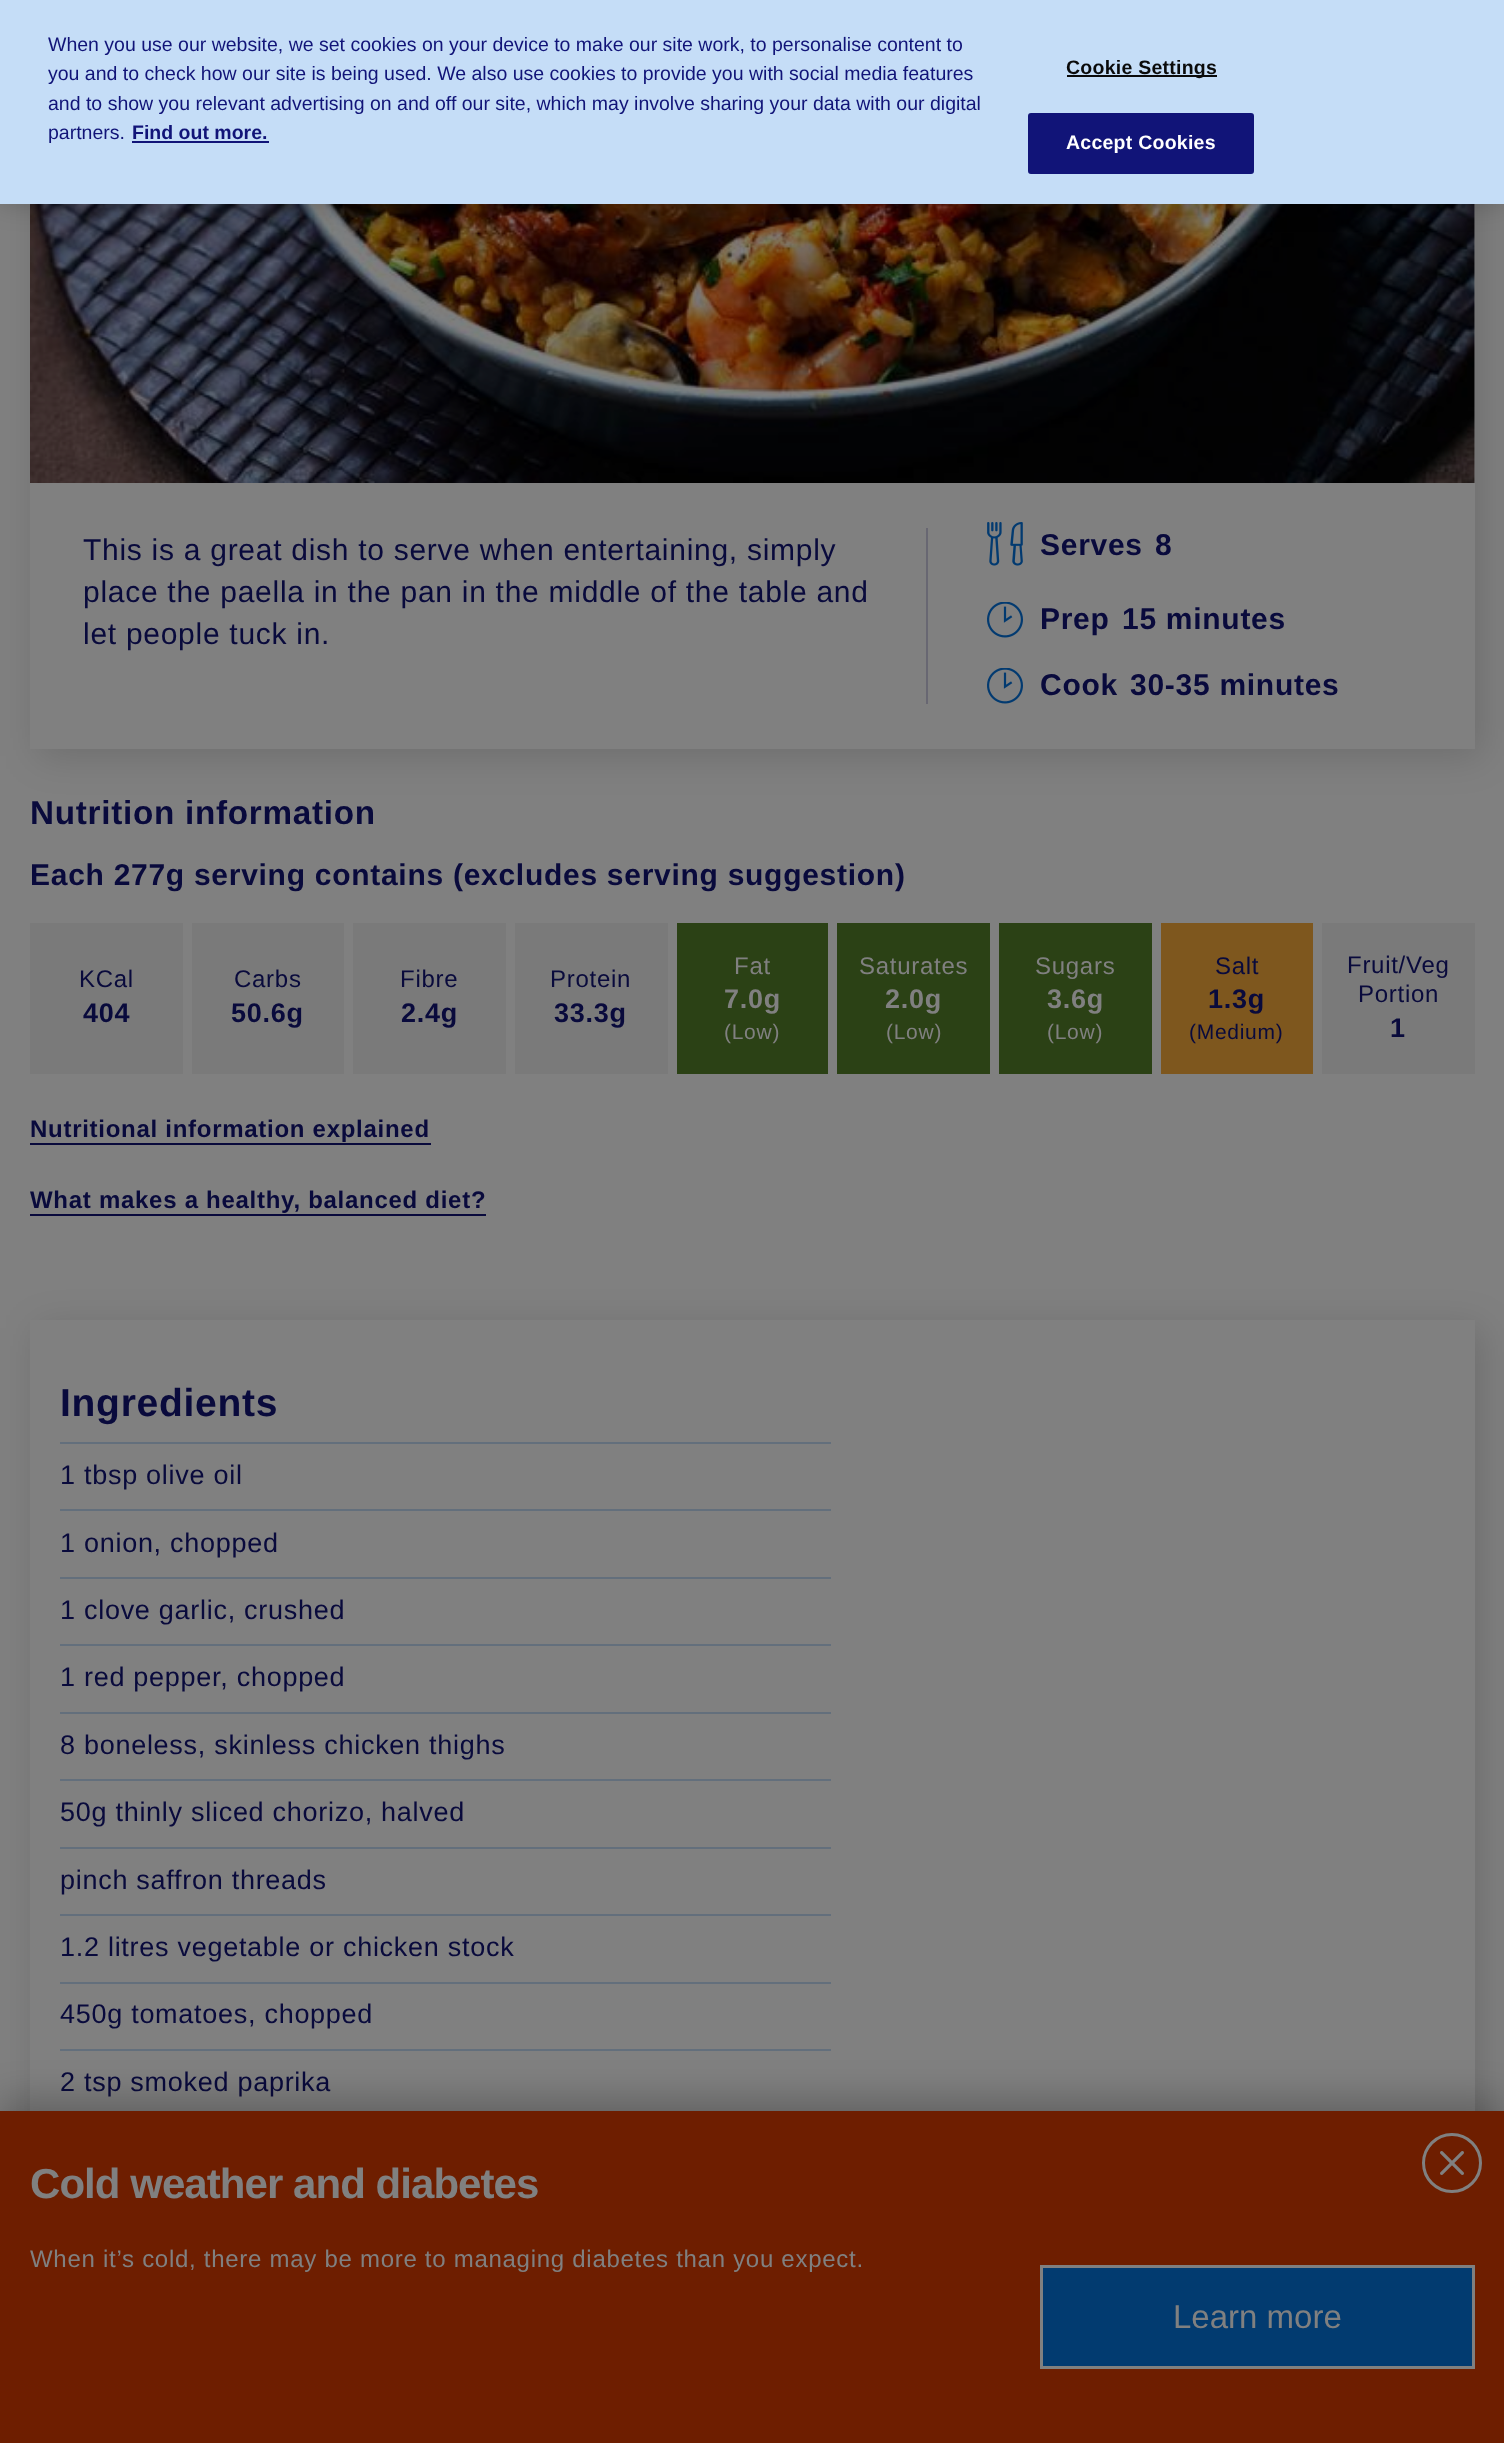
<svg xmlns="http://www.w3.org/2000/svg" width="1504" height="2443">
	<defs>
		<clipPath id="clip1"><path d="M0 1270H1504V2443H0ZM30 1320H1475V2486H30Z" clip-rule="evenodd" /></clipPath>
	</defs>
	<rect width="100%" height="100%" fill="#808080" />
	<rect x="38" y="-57" width="1444" height="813" fill="#000000" fill-opacity="0.15" filter="blur(19px)" />
	<rect x="30" y="204" width="1445" height="545" fill="#808080" />
	<image x="30" y="204" width="1445" height="279" href="assets/img1.png" />
	<rect x="0" y="0" width="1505" height="204" fill="#000000" fill-opacity="0.2" filter="blur(13.5px)" />
	<rect x="0" y="0" width="1504" height="204" fill="#C5DDF7" />
	<g font-family="Liberation Sans" font-size="19.5" fill="#111478">
		<text x="48" y="51">When you use our website, we set cookies on your device to make our site work, to personalise content to</text>
		<text x="48" y="80">you and to check how our site is being used. We also use cookies to provide you with social media features</text>
		<text x="48" y="110">and to show you relevant advertising on and off our site, which may involve sharing your data with our digital</text>
		<text x="48" y="139">partners.</text>
	</g>
	<text x="132" y="139" font-family="Liberation Sans" font-size="19.5" font-weight="700" fill="#111478">Find out more.</text>
	<rect x="132" y="141" width="137" height="2" fill="#111478" />
	<rect x="1067" y="75" width="150" height="2" fill="#0A0A0A" />
	<text x="1066" y="74" font-family="Liberation Sans" font-size="19.5" font-weight="700" letter-spacing="0.25" fill="#0A0A0A">Cookie Settings</text>
	<rect x="1029" y="114" width="224" height="59" rx="2" fill="#111478" stroke="#111478" stroke-width="2" />
	<text x="1066" y="149" font-family="Liberation Sans" font-size="19.5" font-weight="700" letter-spacing="0.25" fill="#FFFFFF">Accept Cookies</text>
	<rect x="926" y="528" width="2" height="176" fill="#686772" />
	<g font-family="Liberation Sans" font-size="30" letter-spacing="0.72" fill="#090A3C">
		<text x="83" y="560">This is a great dish to serve when entertaining, simply</text>
		<text x="83" y="602">place the paella in the pan in the middle of the table and</text>
		<text x="83" y="644">let people tuck in.</text>
	</g>
	<image x="987" y="522" width="36" height="44" href="assets/img2.png" />
	<g font-family="Liberation Sans" font-size="30" font-weight="700" letter-spacing="0.72" fill="#090A3C">
		<text x="1040" y="555">Serves</text>
		<text x="1155" y="555">8</text>
	</g>
	<image x="987" y="602" width="36" height="36" href="assets/img3.png" />
	<g font-family="Liberation Sans" font-size="30" font-weight="700" letter-spacing="0.72" fill="#090A3C">
		<text x="1040" y="629">Prep</text>
		<text x="1122" y="629">15 minutes</text>
	</g>
	<image x="987" y="668" width="36" height="36" href="assets/img3.png" />
	<g font-family="Liberation Sans" font-size="30" font-weight="700" letter-spacing="0.72" fill="#090A3C">
		<text x="1040" y="695">Cook</text>
		<text x="1130" y="695">30-35 minutes</text>
	</g>
	<text x="30" y="824" font-family="Liberation Sans" font-size="33.25" font-weight="700" letter-spacing="0.72" fill="#090A3C">Nutrition information</text>
	<text x="30" y="885" font-family="Liberation Sans" font-size="30" font-weight="700" letter-spacing="0.72" fill="#090A3C">Each 277g serving contains (excludes serving suggestion)</text>
	<rect x="30" y="923" width="153" height="151" fill="#7A7A7A" />
	<text x="79" y="987" font-family="Liberation Sans" font-size="24" letter-spacing="0.72" fill="#090A3C">KCal</text>
	<text x="83" y="1022" font-family="Liberation Sans" font-size="27" font-weight="700" letter-spacing="0.72" fill="#090A3C">404</text>
	<rect x="192" y="923" width="152" height="151" fill="#7A7A7A" />
	<text x="234" y="987" font-family="Liberation Sans" font-size="24" letter-spacing="0.72" fill="#090A3C">Carbs</text>
	<text x="231" y="1022" font-family="Liberation Sans" font-size="27" font-weight="700" letter-spacing="0.72" fill="#090A3C">50.6g</text>
	<rect x="353" y="923" width="153" height="151" fill="#7A7A7A" />
	<text x="400" y="987" font-family="Liberation Sans" font-size="24" letter-spacing="0.72" fill="#090A3C">Fibre</text>
	<text x="401" y="1022" font-family="Liberation Sans" font-size="27" font-weight="700" letter-spacing="0.72" fill="#090A3C">2.4g</text>
	<rect x="515" y="923" width="153" height="151" fill="#7A7A7A" />
	<text x="550" y="987" font-family="Liberation Sans" font-size="24" letter-spacing="0.72" fill="#090A3C">Protein</text>
	<text x="554" y="1022" font-family="Liberation Sans" font-size="27" font-weight="700" letter-spacing="0.72" fill="#090A3C">33.3g</text>
	<rect x="677" y="923" width="151" height="151" fill="#2B4115" />
	<text x="734" y="974" font-family="Liberation Sans" font-size="24" letter-spacing="0.72" fill="#808080">Fat</text>
	<text x="724" y="1008" font-family="Liberation Sans" font-size="27" font-weight="700" letter-spacing="0.72" fill="#808080">7.0g</text>
	<text x="724" y="1039" font-family="Liberation Sans" font-size="21" letter-spacing="0.72" fill="#808080">(Low)</text>
	<rect x="837" y="923" width="153" height="151" fill="#2B4115" />
	<text x="859" y="974" font-family="Liberation Sans" font-size="24" letter-spacing="0.72" fill="#808080">Saturates</text>
	<text x="885" y="1008" font-family="Liberation Sans" font-size="27" font-weight="700" letter-spacing="0.72" fill="#808080">2.0g</text>
	<text x="886" y="1039" font-family="Liberation Sans" font-size="21" letter-spacing="0.72" fill="#808080">(Low)</text>
	<rect x="999" y="923" width="153" height="151" fill="#2B4115" />
	<text x="1035" y="974" font-family="Liberation Sans" font-size="24" letter-spacing="0.72" fill="#808080">Sugars</text>
	<text x="1047" y="1008" font-family="Liberation Sans" font-size="27" font-weight="700" letter-spacing="0.72" fill="#808080">3.6g</text>
	<text x="1047" y="1039" font-family="Liberation Sans" font-size="21" letter-spacing="0.72" fill="#808080">(Low)</text>
	<rect x="1161" y="923" width="152" height="151" fill="#7E571E" />
	<text x="1215" y="974" font-family="Liberation Sans" font-size="24" letter-spacing="0.72" fill="#090A3C">Salt</text>
	<text x="1208" y="1008" font-family="Liberation Sans" font-size="27" font-weight="700" letter-spacing="0.72" fill="#090A3C">1.3g</text>
	<text x="1189" y="1039" font-family="Liberation Sans" font-size="21" letter-spacing="0.72" fill="#090A3C">(Medium)</text>
	<rect x="1322" y="923" width="153" height="151" fill="#7A7A7A" />
	<g font-family="Liberation Sans" font-size="24" letter-spacing="0.72" fill="#090A3C">
		<text x="1347" y="973">Fruit/Veg</text>
		<text x="1358" y="1002">Portion</text>
	</g>
	<text x="1390" y="1037" font-family="Liberation Sans" font-size="27" font-weight="700" letter-spacing="0.72" fill="#090A3C">1</text>
	<text x="30" y="1137" font-family="Liberation Sans" font-size="24" font-weight="700" letter-spacing="0.72" fill="#090A3C">Nutritional information explained</text>
	<rect x="30" y="1143" width="401" height="2" fill="#090A3C" />
	<text x="30" y="1208" font-family="Liberation Sans" font-size="24" font-weight="700" letter-spacing="0.72" fill="#090A3C">What makes a healthy, balanced diet?</text>
	<rect x="30" y="1214" width="456" height="2" fill="#090A3C" />
	<g clip-path="url(#clip1)">
		<rect x="38" y="1328" width="1444" height="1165" fill="#000000" fill-opacity="0.15" filter="blur(19px)" />
	</g>
	<text x="60" y="1416" font-family="Liberation Sans" font-size="39" font-weight="700" letter-spacing="0.72" fill="#090A3C">Ingredients</text>
	<rect x="60" y="1442" width="771" height="2" fill="#636F7C" />
	<text x="60" y="1484" font-family="Liberation Sans" font-size="27" letter-spacing="0.72" fill="#090A3C">1 tbsp olive oil</text>
	<rect x="60" y="1509" width="771" height="2" fill="#636F7C" />
	<text x="60" y="1552" font-family="Liberation Sans" font-size="27" letter-spacing="0.72" fill="#090A3C">1 onion, chopped</text>
	<rect x="60" y="1577" width="771" height="2" fill="#636F7C" />
	<text x="60" y="1619" font-family="Liberation Sans" font-size="27" letter-spacing="0.72" fill="#090A3C">1 clove garlic, crushed</text>
	<rect x="60" y="1644" width="771" height="2" fill="#636F7C" />
	<text x="60" y="1686" font-family="Liberation Sans" font-size="27" letter-spacing="0.72" fill="#090A3C">1 red pepper, chopped</text>
	<rect x="60" y="1712" width="771" height="2" fill="#636F7C" />
	<text x="60" y="1754" font-family="Liberation Sans" font-size="27" letter-spacing="0.72" fill="#090A3C">8 boneless, skinless chicken thighs</text>
	<rect x="60" y="1779" width="771" height="2" fill="#636F7C" />
	<text x="60" y="1821" font-family="Liberation Sans" font-size="27" letter-spacing="0.72" fill="#090A3C">50g thinly sliced chorizo, halved</text>
	<rect x="60" y="1847" width="771" height="2" fill="#636F7C" />
	<text x="60" y="1889" font-family="Liberation Sans" font-size="27" letter-spacing="0.72" fill="#090A3C">pinch saffron threads</text>
	<rect x="60" y="1914" width="771" height="2" fill="#636F7C" />
	<text x="60" y="1956" font-family="Liberation Sans" font-size="27" letter-spacing="0.72" fill="#090A3C">1.2 litres vegetable or chicken stock</text>
	<rect x="60" y="1982" width="771" height="2" fill="#636F7C" />
	<text x="60" y="2023" font-family="Liberation Sans" font-size="27" letter-spacing="0.72" fill="#090A3C">450g tomatoes, chopped</text>
	<rect x="60" y="2049" width="771" height="2" fill="#636F7C" />
	<text x="60" y="2091" font-family="Liberation Sans" font-size="27" letter-spacing="0.72" fill="#090A3C">2 tsp smoked paprika</text>
	<rect x="0" y="2099" width="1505" height="333" fill="#000000" fill-opacity="0.24" filter="blur(18px)" />
	<rect x="0" y="2111" width="1504" height="332" fill="#6E1E00" />
	<text x="30" y="2198" font-family="Liberation Sans" font-size="42" font-weight="700" letter-spacing="-0.95" fill="#808080">Cold weather and diabetes</text>
	<text x="30" y="2267" font-family="Liberation Sans" font-size="24" letter-spacing="0.72" fill="#808080">When it’s cold, there may be more to managing diabetes than you expect.</text>
	<image x="1440" y="2151" width="24" height="24" href="assets/img4.png" />
	<circle cx="1452" cy="2163" r="28.5" fill="none" stroke="#808080" stroke-width="3" />
	<rect x="1041.5" y="2266.5" width="432" height="101" fill="#023B70" stroke="#808080" stroke-width="3" />
	<text x="1173" y="2328" font-family="Liberation Sans" font-size="33" fill="#808080">Learn more</text>
</svg>
